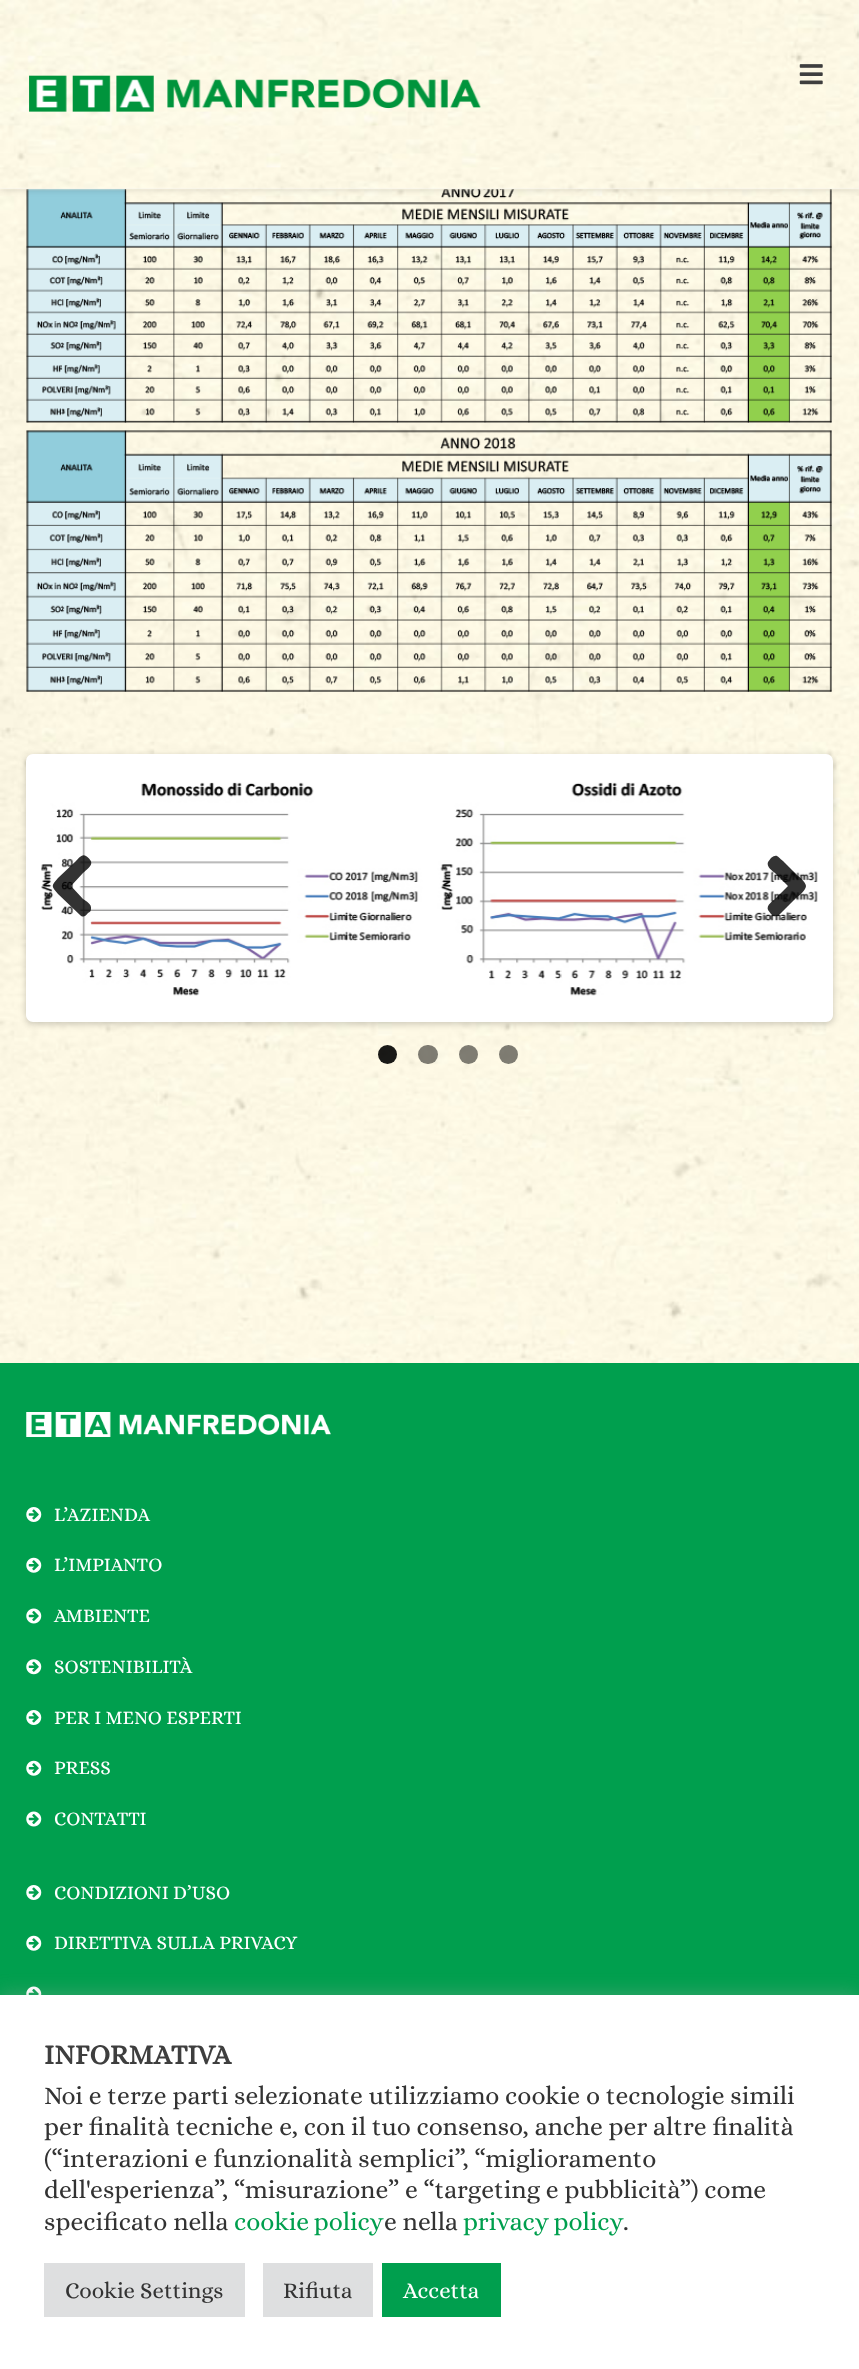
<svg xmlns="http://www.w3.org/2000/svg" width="859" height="2369">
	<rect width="100%" height="100%" fill="#FFFFFF" />
	<image x="0" y="189" width="859" height="1174" href="assets/img4.png" />
	<image x="26" y="189" width="806" height="503" href="assets/img5.png" />
	<rect x="0" y="0" width="859" height="189" fill="#000000" fill-opacity="0.2" filter="blur(3.5px)" />
	<rect x="0" y="0" width="859" height="189" fill="#F2F2F2" />
	<image x="0" y="0" width="859" height="191" href="assets/img1.png" />
	<image x="29" y="75" width="452" height="37" href="assets/img2.png" />
	<image x="799" y="64" width="24" height="21" href="assets/img3.png" />
	<rect x="26" y="756" width="807" height="268" rx="7" fill="#000000" fill-opacity="0.2" filter="blur(3.5px)" />
	<rect x="29.5" y="757.5" width="800" height="261" rx="3.5" fill="#FFFFFF" stroke="#FFFFFF" stroke-width="7" />
	<image x="41" y="782" width="777" height="214" href="assets/img6.png" />
	<path d="M80 915L58 894C51 886 51 886 58 878L76 861C78 859 82 853 86 856C96 863 90 867 83 873L71 886L83 899C86 901 92 904 91 909C91 911 90 912 88 913C86 916 83 918 80 915Z" fill="#000000" fill-opacity="0.8" />
	<path d="M806 886C806 890 799 896 796 898L783 911C779 915 776 919 771 914L768 910C766 905 773 901 775 899L788 886L775 873C773 871 766 867 768 862L771 858C777 853 778 857 783 861L796 874C798 876 806 882 806 886Z" fill="#000000" fill-opacity="0.8" />
	<circle cx="387.5" cy="1054.5" r="9.5" fill="#000000" fill-opacity="0.9" />
	<rect x="418" y="1045" width="20" height="19" rx="9.5" fill="#000000" fill-opacity="0.5" />
	<circle cx="468.5" cy="1054.5" r="9.5" fill="#000000" fill-opacity="0.5" />
	<circle cx="508.5" cy="1054.5" r="9.5" fill="#000000" fill-opacity="0.5" />
	<rect x="0" y="1363" width="859" height="632" fill="#009F4E" />
	<image x="26" y="1412" width="305" height="25" href="assets/img7.png" />
	<image x="26" y="1507" width="16" height="15" href="assets/img8.png" />
	<text x="54" y="1521" font-family="Alice" font-size="19.25" fill="#FFFFFF">L’AZIENDA</text>
	<image x="26" y="1557" width="16" height="16" href="assets/img9.png" />
	<text x="54" y="1571" font-family="Alice" font-size="19.25" fill="#FFFFFF">L’IMPIANTO</text>
	<image x="26" y="1608" width="16" height="16" href="assets/img10.png" />
	<text x="54" y="1622" font-family="Alice" font-size="19.25" fill="#FFFFFF">AMBIENTE</text>
	<image x="26" y="1659" width="16" height="16" href="assets/img11.png" />
	<text x="54" y="1673" font-family="Alice" font-size="19.25" fill="#FFFFFF">SOSTENIBILITÀ</text>
	<image x="26" y="1710" width="16" height="15" href="assets/img8.png" />
	<text x="54" y="1724" font-family="Alice" font-size="19.25" fill="#FFFFFF">PER I MENO ESPERTI</text>
	<image x="26" y="1760" width="16" height="16" href="assets/img9.png" />
	<text x="54" y="1774" font-family="Alice" font-size="19.25" fill="#FFFFFF">PRESS</text>
	<image x="26" y="1811" width="16" height="16" href="assets/img12.png" />
	<text x="54" y="1825" font-family="Alice" font-size="19.25" fill="#FFFFFF">CONTATTI</text>
	<image x="26" y="1885" width="16" height="15" href="assets/img13.png" />
	<text x="54" y="1899" font-family="Alice" font-size="19.25" fill="#FFFFFF">CONDIZIONI D’USO</text>
	<image x="26" y="1935" width="16" height="16" href="assets/img14.png" />
	<text x="54" y="1949" font-family="Alice" font-size="19.25" fill="#FFFFFF">DIRETTIVA SULLA PRIVACY</text>
	<image x="26" y="1986" width="16" height="9" href="assets/img15.png" />
	<rect x="0" y="1993" width="859" height="375" fill="#ACABAB" fill-opacity="0.3" filter="blur(9px)" />
	<rect x="0" y="1995" width="859" height="374" fill="#FFFFFF" />
	<text x="44" y="2064" font-family="Alice" font-size="28" font-weight="700" fill="#3E3E3E">INFORMATIVA</text>
	<g font-family="Alice" font-size="25.7" fill="#333333">
		<text x="44" y="2104">Noi e terze parti selezionate utilizziamo cookie o tecnologie simili</text>
		<text x="44" y="2135">per finalità tecniche e, con il tuo consenso, anche per altre finalità</text>
		<text x="44" y="2167">(“interazioni e funzionalità semplici”, “miglioramento</text>
		<text x="44" y="2198">dell'esperienza”, “misurazione” e “targeting e pubblicità”) come</text>
		<text x="44" y="2230">specificato nella</text>
	</g>
	<text x="234" y="2230" word-spacing="-1" font-family="Alice" font-size="25.7" fill="#009F4E">cookie policy</text>
	<text x="384" y="2230" font-family="Alice" font-size="25.7" fill="#333333">e nella</text>
	<text x="463" y="2230" word-spacing="-1" font-family="Alice" font-size="25.7" fill="#009F4E">privacy policy</text>
	<text x="623" y="2230" font-family="Alice" font-size="25.7" fill="#333333">.</text>
	<rect x="44" y="2263" width="201" height="54" fill="#DEDFE0" />
	<text x="65" y="2298" font-family="Alice" font-size="22.75" fill="#333333">Cookie Settings</text>
	<rect x="263" y="2263" width="110" height="54" fill="#DEDFE0" />
	<text x="283" y="2298" font-family="Alice" font-size="22.75" fill="#333333">Rifiuta</text>
	<rect x="382" y="2263" width="119" height="54" fill="#009F4E" />
	<text x="403" y="2298" font-family="Alice" font-size="22.75" fill="#FFFFFF">Accetta</text>
</svg>
